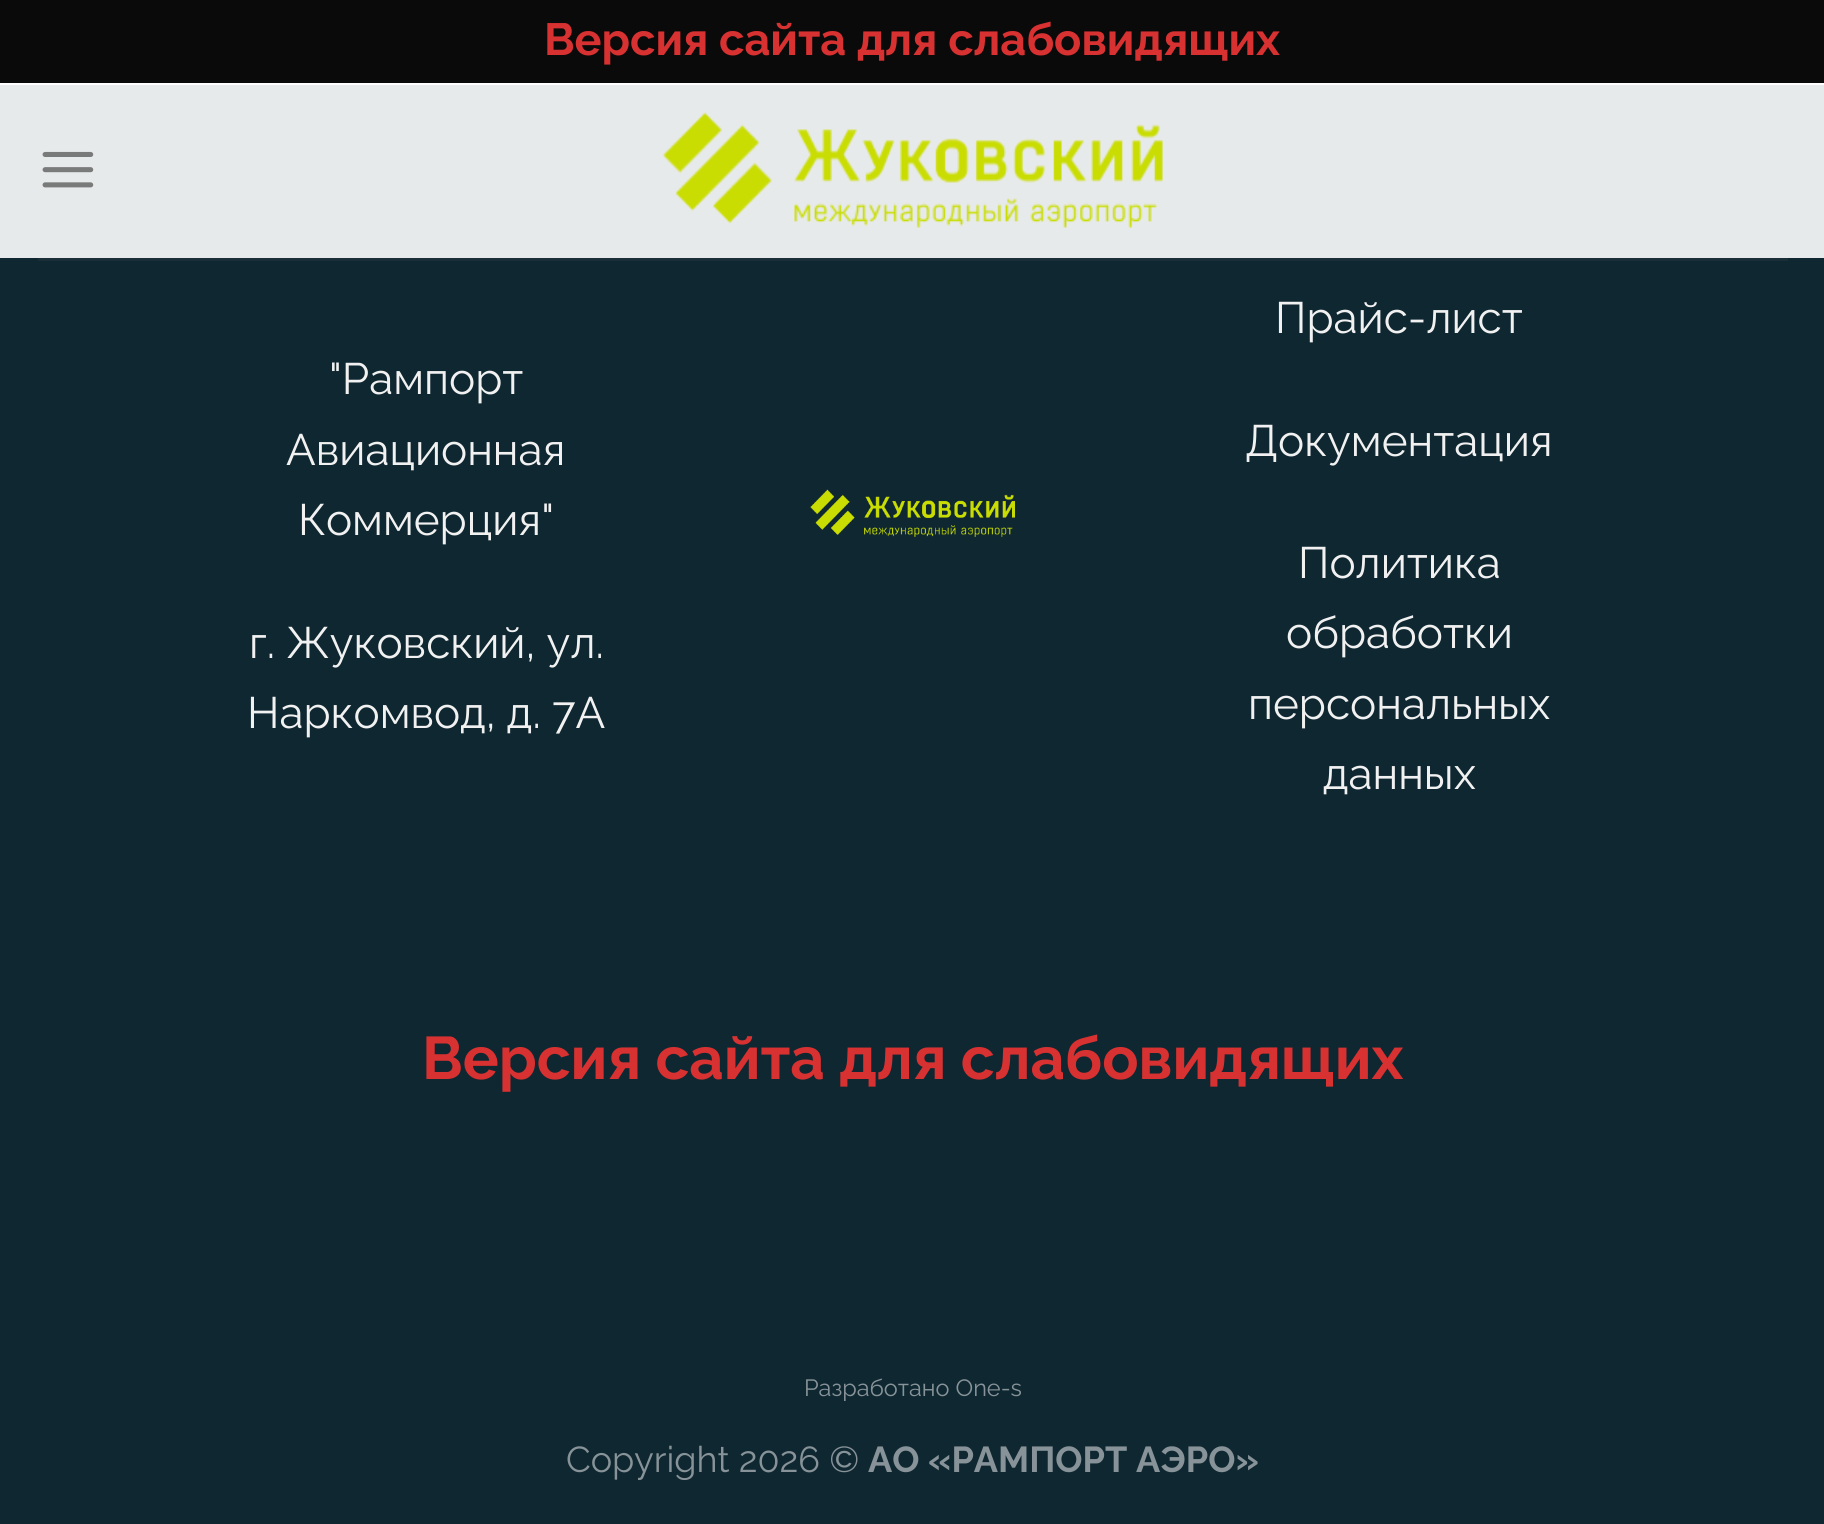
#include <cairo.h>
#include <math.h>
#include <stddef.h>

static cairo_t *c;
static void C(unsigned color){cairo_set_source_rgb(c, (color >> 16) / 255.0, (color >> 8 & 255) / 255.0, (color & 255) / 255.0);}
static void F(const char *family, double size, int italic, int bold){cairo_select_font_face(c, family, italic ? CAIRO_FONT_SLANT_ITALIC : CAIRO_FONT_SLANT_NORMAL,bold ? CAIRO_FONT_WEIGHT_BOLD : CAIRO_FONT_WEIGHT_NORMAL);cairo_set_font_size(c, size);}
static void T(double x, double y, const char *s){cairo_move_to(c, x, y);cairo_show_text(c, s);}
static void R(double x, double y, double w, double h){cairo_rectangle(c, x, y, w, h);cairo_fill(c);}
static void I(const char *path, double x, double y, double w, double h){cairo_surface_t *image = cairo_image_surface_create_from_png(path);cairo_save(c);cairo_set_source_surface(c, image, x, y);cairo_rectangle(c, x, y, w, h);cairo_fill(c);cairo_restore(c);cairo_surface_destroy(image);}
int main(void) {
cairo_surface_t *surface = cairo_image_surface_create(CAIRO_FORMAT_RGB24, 1824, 1524);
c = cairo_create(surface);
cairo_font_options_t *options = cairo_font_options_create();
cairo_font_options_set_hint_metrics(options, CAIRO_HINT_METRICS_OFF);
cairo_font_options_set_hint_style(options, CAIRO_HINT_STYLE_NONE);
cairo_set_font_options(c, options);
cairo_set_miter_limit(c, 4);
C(0xffffff);
cairo_paint(c);
C(0x0a0a0a);
R(0,0,1824,83);
F("Raleway",45,0,1);
C(0xd83131);
T(544,55,"Версия сайта для слабовидящих");
C(0x0f2731);
R(0,85,1824,1439);
cairo_set_source_rgba(c,1,1,1,0.9);
R(0,85,1824,173);
I("1.png",42,151,52,37);
I("2.png",662,112,501,116);
cairo_set_source_rgba(c,0.467,0.467,0.467,0.1);
R(38,258,1750,3);
F("Raleway",44,0,0);
C(0xf1f1f1);
T(329,394,"\"Рампорт");
T(286,465,"Авиационная");
T(298,535,"Коммерция\"");
T(249,658,"г. Жуковский, ул.");
T(247,728,"Наркомвод, д. 7А");
I("3.png",810,489,205,48);
T(1275,333,"Прайс-лист");
T(1245,456,"Документация");
T(1298,578,"Политика");
T(1286,648,"обработки");
T(1248,719,"персональных");
T(1323,789,"данных");
F("Raleway",60,0,1);
C(0xd83131);
T(422,1079,"Версия сайта для слабовидящих");
F("Raleway",23.5,0,0);
C(0x879398);
T(804,1396,"Разработано One-s");
F("Raleway",36,0,0);
T(566,1472,"Copyright 2026 ©");
F("Raleway",36,0,1);
T(868,1472,"АО «РАМПОРТ АЭРО»");
cairo_surface_write_to_png(surface, "o.png");
cairo_font_options_destroy(options);
cairo_destroy(c);
cairo_surface_destroy(surface);
return 0;
}
